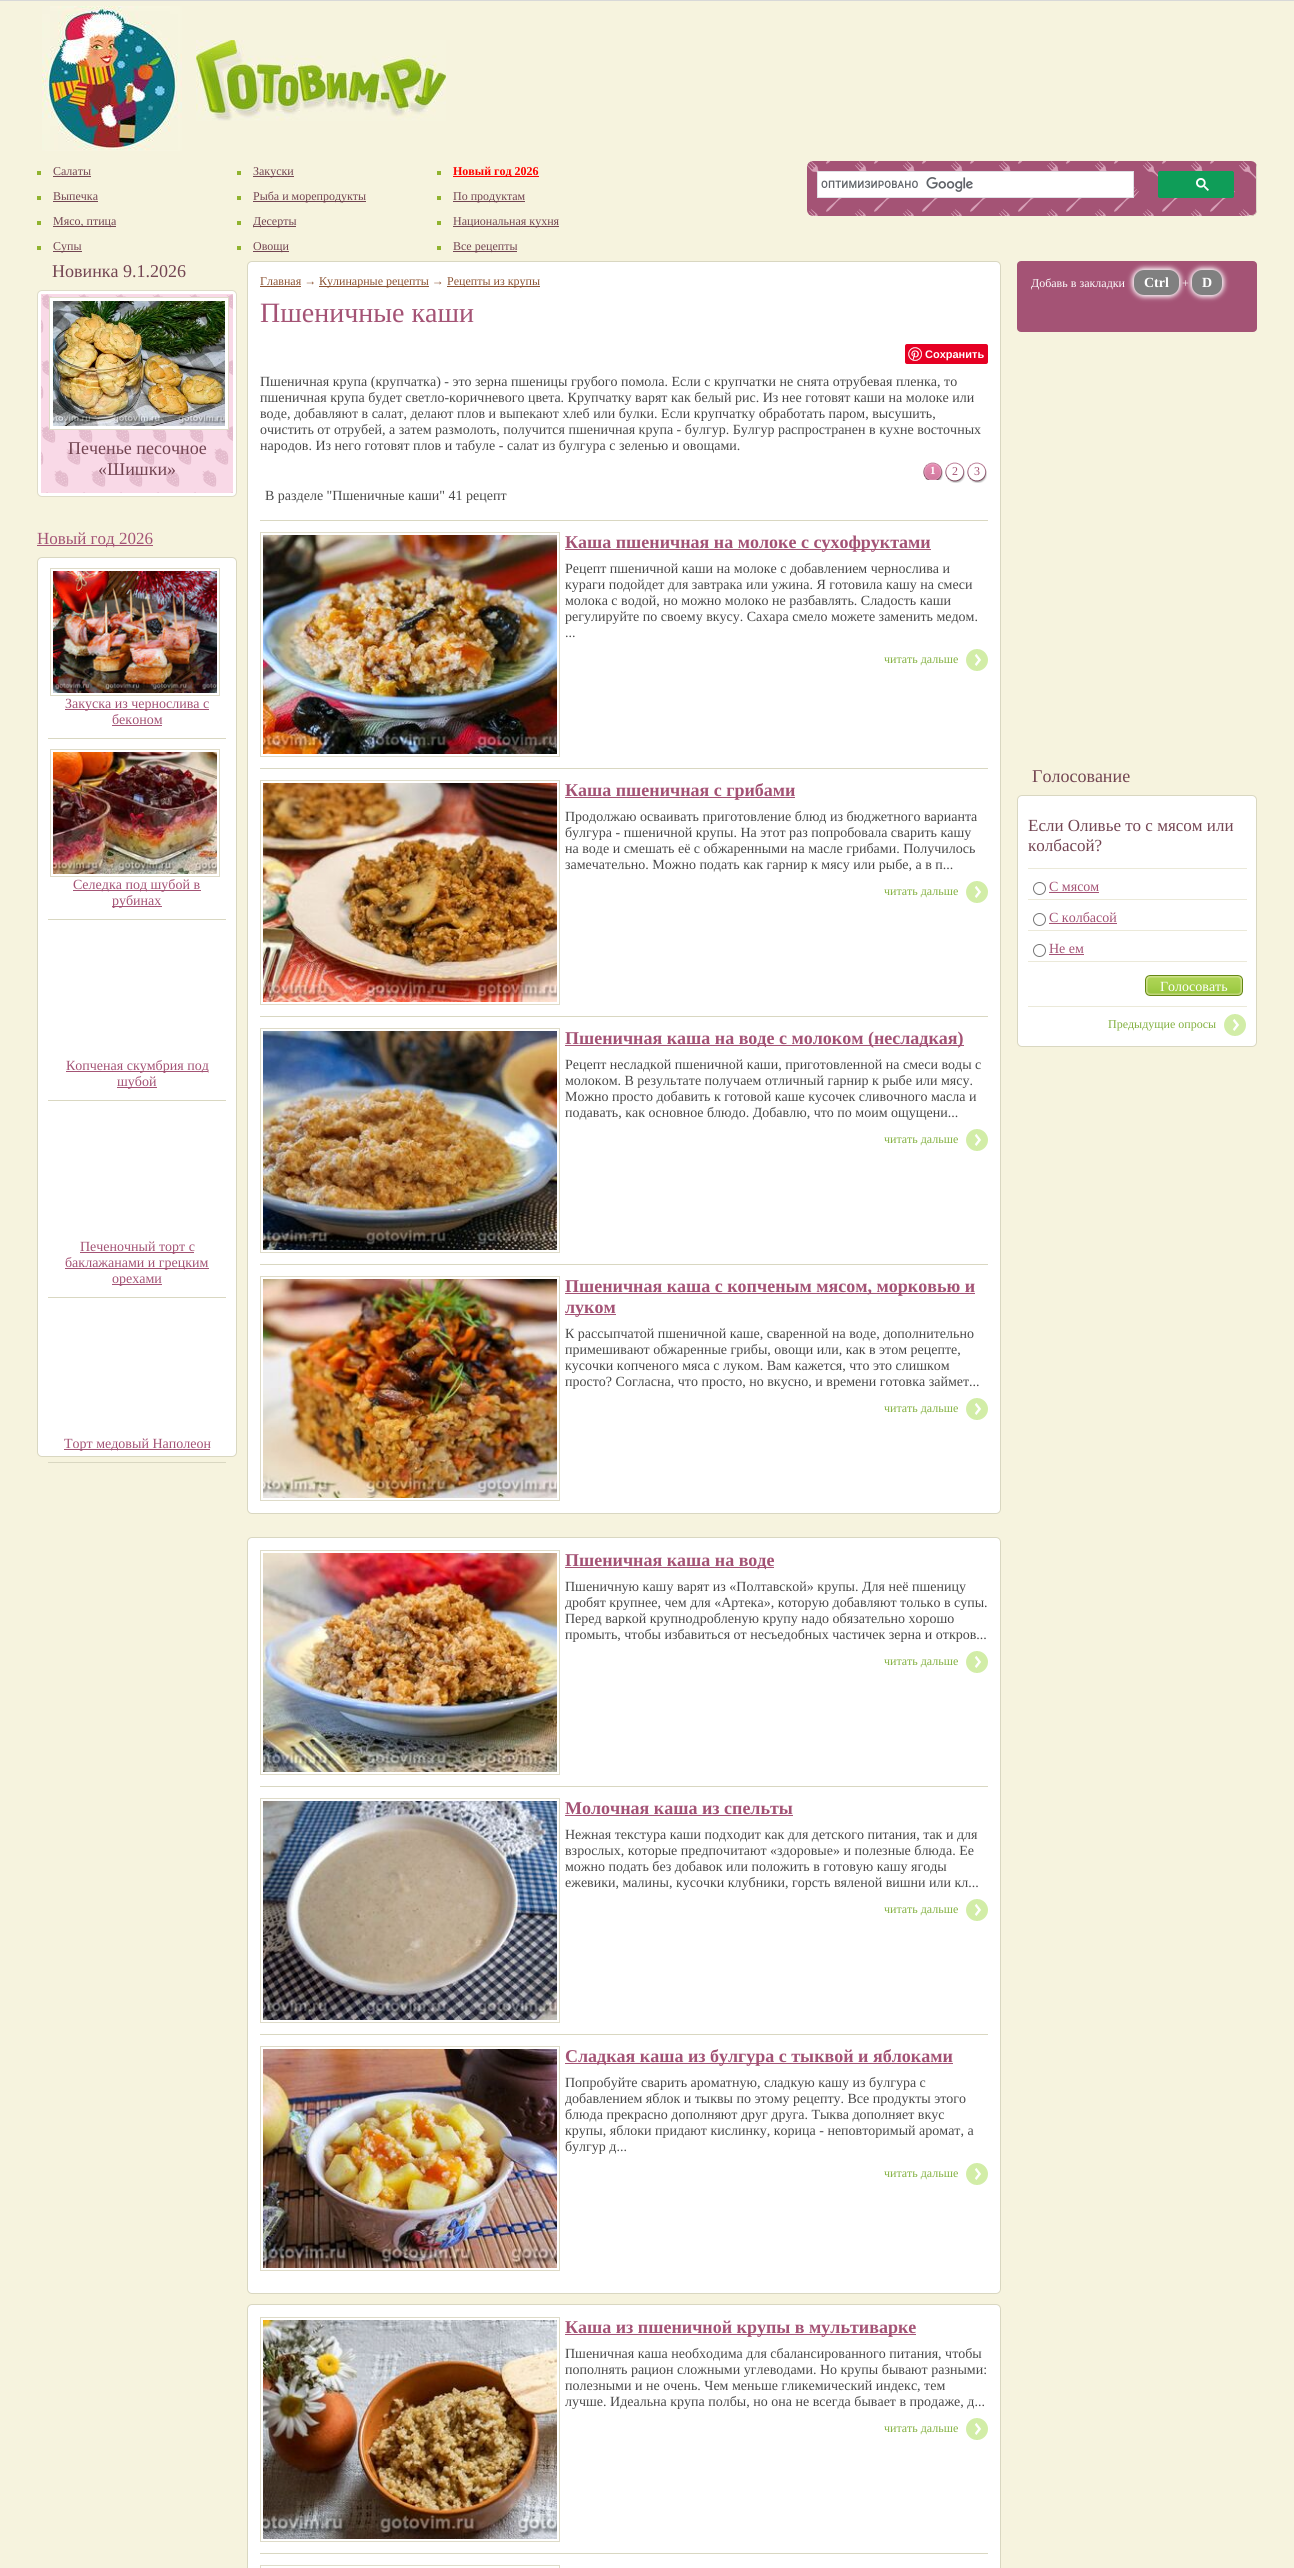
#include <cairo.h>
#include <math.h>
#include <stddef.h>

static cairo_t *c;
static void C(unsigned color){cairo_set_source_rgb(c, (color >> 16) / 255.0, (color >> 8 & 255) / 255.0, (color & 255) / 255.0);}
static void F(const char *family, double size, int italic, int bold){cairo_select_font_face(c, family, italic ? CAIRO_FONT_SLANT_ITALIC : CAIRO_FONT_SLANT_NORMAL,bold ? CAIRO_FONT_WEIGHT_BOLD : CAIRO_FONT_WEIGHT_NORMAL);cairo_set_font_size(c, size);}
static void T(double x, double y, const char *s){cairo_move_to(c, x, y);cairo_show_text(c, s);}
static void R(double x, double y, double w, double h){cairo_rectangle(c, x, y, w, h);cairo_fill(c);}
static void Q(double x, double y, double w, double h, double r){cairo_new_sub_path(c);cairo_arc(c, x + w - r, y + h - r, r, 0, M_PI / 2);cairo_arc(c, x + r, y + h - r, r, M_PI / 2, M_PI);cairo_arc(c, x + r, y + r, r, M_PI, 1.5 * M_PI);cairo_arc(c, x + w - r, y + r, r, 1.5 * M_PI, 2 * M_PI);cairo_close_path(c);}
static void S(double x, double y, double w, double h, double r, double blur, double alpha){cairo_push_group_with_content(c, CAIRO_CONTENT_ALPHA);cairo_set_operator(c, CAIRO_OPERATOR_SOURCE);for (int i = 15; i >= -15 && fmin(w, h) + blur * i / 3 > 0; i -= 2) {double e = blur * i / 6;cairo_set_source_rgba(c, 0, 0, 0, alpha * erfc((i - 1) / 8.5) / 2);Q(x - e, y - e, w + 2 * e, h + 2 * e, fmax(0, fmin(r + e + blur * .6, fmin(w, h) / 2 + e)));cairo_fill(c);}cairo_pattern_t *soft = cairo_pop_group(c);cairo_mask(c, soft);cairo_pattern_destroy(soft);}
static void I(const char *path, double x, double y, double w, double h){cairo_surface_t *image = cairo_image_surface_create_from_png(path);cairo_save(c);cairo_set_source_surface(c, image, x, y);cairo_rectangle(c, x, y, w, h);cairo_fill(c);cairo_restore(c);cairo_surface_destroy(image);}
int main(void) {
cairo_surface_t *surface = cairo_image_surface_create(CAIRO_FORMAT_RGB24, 1294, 2568);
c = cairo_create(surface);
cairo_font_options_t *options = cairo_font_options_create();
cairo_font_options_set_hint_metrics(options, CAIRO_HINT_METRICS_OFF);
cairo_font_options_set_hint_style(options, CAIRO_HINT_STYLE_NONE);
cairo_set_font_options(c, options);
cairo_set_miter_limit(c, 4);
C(0xf6f3de);
cairo_paint(c);
C(0xd8d8d8);
R(0,0,1294,1);
I("1.png",42,6,140,145);
I("2.png",196,40,250,81);
C(0x90b32e);
R(37,171,4,4);
F("Liberation Serif",12,0,0);
C(0x734552);
T(53,175,"Салаты");
R(53,176,38,1);
C(0x90b32e);
R(37,196,4,4);
C(0x734552);
T(53,200,"Выпечка");
R(53,201,45,1);
C(0x90b32e);
R(37,221,4,4);
C(0x734552);
R(53,226,63,1);
T(53,225,"Мясо, птица");
C(0x90b32e);
R(37,246,4,4);
C(0x734552);
R(53,251,29,1);
T(53,250,"Супы");
C(0x90b32e);
R(237,171,4,4);
C(0x734552);
R(253,176,41,1);
T(253,175,"Закуски");
C(0x90b32e);
R(237,196,4,4);
C(0x734552);
R(253,201,113,1);
T(253,200,"Рыба и морепродукты");
C(0x90b32e);
R(237,221,4,4);
C(0x734552);
R(253,226,43,1);
T(253,225,"Десерты");
C(0x90b32e);
R(237,246,4,4);
C(0x734552);
R(253,251,36,1);
T(253,250,"Овощи");
C(0x90b32e);
R(437,171,4,4);
C(0xff0000);
R(453,176,86,1);
F("Liberation Serif",12,0,1);
T(453,175,"Новый год 2026");
C(0x90b32e);
R(437,196,4,4);
C(0x734552);
R(453,201,72,1);
F("Liberation Serif",12,0,0);
T(453,200,"По продуктам");
C(0x90b32e);
R(437,221,4,4);
C(0x734552);
R(453,226,106,1);
T(453,225,"Национальная кухня");
C(0x90b32e);
R(437,246,4,4);
C(0x734552);
R(453,251,64,1);
T(453,250,"Все рецепты");
I("3.png",807,161,450,55);
I("4.png",1249,164,8,52);
C(0xffffff);
cairo_rectangle(c,817.5,171.5,316,26);
cairo_fill_preserve(c);
C(0xdfe1e5);
cairo_set_line_width(c,1);
cairo_stroke(c);
I("5.png",821,177,152,15);
C(0x0f9d58);
Q(1158.5,171.5,75,26,1.5);
cairo_fill_preserve(c);
cairo_stroke(c);
I("6.png",1196,178,13,13);
F("Liberation Serif",18,0,0);
C(0x734552);
T(52,277,"Новинка 9.1.2026");
C(0xffffff);
Q(37.5,290.5,199,206,4.5);
cairo_fill_preserve(c);
C(0xdedbc8);
cairo_stroke(c);
I("7.png",41,294,192,199);
C(0xffffff);
cairo_rectangle(c,49.5,297.5,179,132);
cairo_fill_preserve(c);
C(0xdedbc8);
cairo_stroke(c);
I("8.png",53,301,172,125);
C(0x734552);
T(68,454,"Печенье песочное");
T(98,475,"«Шишки»");
C(0xa45375);
R(37,545,116,1);
F("Liberation Serif",17,0,0);
T(37,544,"Новый год 2026");
C(0xffffff);
Q(37.5,557.5,199,899,4.5);
cairo_fill_preserve(c);
C(0xd9d7c1);
cairo_stroke(c);
R(48,738,178,1);
cairo_rectangle(c,50.5,568.5,169,127);
C(0xdedbc8);
cairo_stroke(c);
I("9.png",53,571,164,122);
C(0xa45375);
R(65,709,144,1);
F("Liberation Serif",14,0,0);
T(65,708,"Закуска из чернослива с");
T(112,724,"беконом");
R(112,725,50,1);
C(0xd9d7c1);
R(48,919,178,1);
cairo_rectangle(c,50.5,749.5,169,127);
C(0xdedbc8);
cairo_stroke(c);
I("10.png",53,752,164,122);
C(0xa45375);
R(73,890,128,1);
T(73,889,"Селедка под шубой в");
R(112,906,50,1);
T(112,905,"рубинах");
C(0xd9d7c1);
R(48,1100,178,1);
C(0xa45375);
R(66,1071,142,1);
T(66,1070,"Копченая скумбрия под");
R(117,1087,40,1);
T(117,1086,"шубой");
C(0xd9d7c1);
R(48,1297,178,1);
C(0xa45375);
R(80,1252,114,1);
T(80,1251,"Печеночный торт с");
R(65,1268,144,1);
T(65,1267,"баклажанами и грецким");
R(112,1284,50,1);
T(112,1283,"орехами");
C(0xd9d7c1);
R(48,1462,178,1);
C(0xa45375);
R(64,1449,146,1);
T(64,1448,"Торт медовый Наполеон");
C(0xffffff);
Q(247.5,261.5,753,1252,4.5);
cairo_fill_preserve(c);
C(0xd9d7c1);
cairo_stroke(c);
F("Liberation Serif",12,0,0);
C(0x8b5232);
T(260,285,"Главная →");
R(260,286,41,1);
R(319,286,110,1);
T(319,285,"Кулинарные рецепты →");
R(447,286,93,1);
T(447,285,"Рецепты из крупы");
F("Liberation Serif",28,0,0);
C(0xa45375);
T(260,322,"Пшеничные каши");
C(0xe60023);
Q(905,344,83,20,2);
cairo_fill(c);
I("11.png",908,347,14,14);
F("Liberation Sans",11,0,1);
C(0xffffff);
T(925,358,"Сохранить");
F("Liberation Serif",14,0,0);
C(0x494949);
T(260,386,"Пшеничная крупа (крупчатка) - это зерна пшеницы грубого помола. Если с крупчатки не снята отрубевая пленка, то");
T(260,402,"пшеничная крупа будет светло-коричневого цвета. Крупчатку варят как белый рис. Из нее готовят каши на молоке или");
T(260,418,"воде, добавляют в салат, делают плов и выпекают хлеб или булки. Если крупчатку обработать паром, высушить,");
T(260,434,"очистить от отрубей, а затем размолоть, получится пшеничная крупа - булгур. Булгур распространен в кухне восточных");
T(260,450,"народов. Из него готовят плов и табуле - салат из булгура с зеленью и овощами.");
I("12.png",923,462,20,18);
F("Liberation Serif",11,0,1);
C(0xffffff);
T(930,474,"1");
I("13.png",945,462,20,21);
F("Liberation Serif",12,0,0);
C(0xa45375);
T(952,475,"2");
I("13.png",967,462,20,21);
T(974,475,"3");
F("Liberation Serif",14,0,0);
C(0x494949);
T(265,500,"В разделе \"Пшеничные каши\" 41 рецепт");
C(0xd9d7c1);
R(260,520,728,1);
cairo_rectangle(c,260.5,532.5,299,224);
C(0xdedbc8);
cairo_stroke(c);
I("14.png",263,535,294,219);
C(0xa45375);
R(565,549,366,1);
F("Liberation Serif",18,0,1);
T(565,548,"Каша пшеничная на молоке с сухофруктами");
F("Liberation Serif",14,0,0);
C(0x494949);
T(565,573,"Рецепт пшеничной каши на молоке с добавлением чернослива и");
T(565,589,"кураги подойдет для завтрака или ужина. Я готовила кашу на смеси");
T(565,605,"молока с водой, но можно молоко не разбавлять. Сладость каши");
T(565,621,"регулируйте по своему вкусу. Сахара смело можете заменить медом.");
T(565,637,"...");
F("Liberation Serif",12,0,0);
C(0x82b03f);
T(884,663,"читать дальше");
I("15.png",966,649,22,22);
C(0xd9d7c1);
R(260,768,728,1);
cairo_rectangle(c,260.5,780.5,299,224);
C(0xdedbc8);
cairo_stroke(c);
I("16.png",263,783,294,219);
C(0xa45375);
R(565,797,230,1);
F("Liberation Serif",18,0,1);
T(565,796,"Каша пшеничная с грибами");
F("Liberation Serif",14,0,0);
C(0x494949);
T(565,821,"Продолжаю осваивать приготовление блюд из бюджетного варианта");
T(565,837,"булгура - пшеничной крупы. На этот раз попробовала сварить кашу");
T(565,853,"на воде и смешать её с обжаренными на масле грибами. Получилось");
T(565,869,"замечательно. Можно подать как гарнир к мясу или рыбе, а в п...");
F("Liberation Serif",12,0,0);
C(0x82b03f);
T(884,895,"читать дальше");
I("15.png",966,881,22,22);
C(0xd9d7c1);
R(260,1016,728,1);
cairo_rectangle(c,260.5,1028.5,299,224);
C(0xdedbc8);
cairo_stroke(c);
I("17.png",263,1031,294,219);
C(0xa45375);
R(565,1045,399,1);
F("Liberation Serif",18,0,1);
T(565,1044,"Пшеничная каша на воде с молоком (несладкая)");
F("Liberation Serif",14,0,0);
C(0x494949);
T(565,1069,"Рецепт несладкой пшеничной каши, приготовленной на смеси воды с");
T(565,1085,"молоком. В результате получаем отличный гарнир к рыбе или мясу.");
T(565,1101,"Можно просто добавить к готовой каше кусочек сливочного масла и");
T(565,1117,"подавать, как основное блюдо. Добавлю, что по моим ощущени...");
F("Liberation Serif",12,0,0);
C(0x82b03f);
T(884,1143,"читать дальше");
I("15.png",966,1129,22,22);
C(0xd9d7c1);
R(260,1264,728,1);
cairo_rectangle(c,260.5,1276.5,299,224);
C(0xdedbc8);
cairo_stroke(c);
I("18.png",263,1279,294,219);
C(0xa45375);
R(565,1293,410,1);
F("Liberation Serif",18,0,1);
T(565,1292,"Пшеничная каша с копченым мясом, морковью и");
R(565,1314,51,1);
T(565,1313,"луком");
F("Liberation Serif",14,0,0);
C(0x494949);
T(565,1338,"К рассыпчатой пшеничной каше, сваренной на воде, дополнительно");
T(565,1354,"примешивают обжаренные грибы, овощи или, как в этом рецепте,");
T(565,1370,"кусочки копченого мяса с луком. Вам кажется, что это слишком");
T(565,1386,"просто? Согласна, что просто, но вкусно, и времени готовка займет...");
F("Liberation Serif",12,0,0);
C(0x82b03f);
T(884,1412,"читать дальше");
I("15.png",966,1398,22,22);
C(0xffffff);
Q(247.5,1537.5,753,756,4.5);
cairo_fill_preserve(c);
C(0xd9d7c1);
cairo_stroke(c);
cairo_rectangle(c,260.5,1550.5,299,224);
C(0xdedbc8);
cairo_stroke(c);
I("19.png",263,1553,294,219);
C(0xa45375);
R(565,1567,209,1);
F("Liberation Serif",18,0,1);
T(565,1566,"Пшеничная каша на воде");
F("Liberation Serif",14,0,0);
C(0x494949);
T(565,1591,"Пшеничную кашу варят из «Полтавской» крупы. Для неё пшеницу");
T(565,1607,"дробят крупнее, чем для «Артека», которую добавляют только в супы.");
T(565,1623,"Перед варкой крупнодробленую крупу надо обязательно хорошо");
T(565,1639,"промыть, чтобы избавиться от несъедобных частичек зерна и откров...");
F("Liberation Serif",12,0,0);
C(0x82b03f);
T(884,1665,"читать дальше");
I("15.png",966,1651,22,22);
C(0xd9d7c1);
R(260,1786,728,1);
cairo_rectangle(c,260.5,1798.5,299,224);
C(0xdedbc8);
cairo_stroke(c);
I("20.png",263,1801,294,219);
F("Liberation Serif",18,0,1);
C(0xa45375);
T(565,1814,"Молочная каша из спельты");
R(565,1815,228,1);
F("Liberation Serif",14,0,0);
C(0x494949);
T(565,1839,"Нежная текстура каши подходит как для детского питания, так и для");
T(565,1855,"взрослых, которые предпочитают «здоровые» и полезные блюда. Ее");
T(565,1871,"можно подать без добавок или положить в готовую кашу ягоды");
T(565,1887,"ежевики, малины, кусочки клубники, горсть вяленой вишни или кл...");
F("Liberation Serif",12,0,0);
C(0x82b03f);
T(884,1913,"читать дальше");
I("15.png",966,1899,22,22);
C(0xd9d7c1);
R(260,2034,728,1);
cairo_rectangle(c,260.5,2046.5,299,224);
C(0xdedbc8);
cairo_stroke(c);
I("21.png",263,2049,294,219);
C(0xa45375);
R(565,2063,388,1);
F("Liberation Serif",18,0,1);
T(565,2062,"Сладкая каша из булгура с тыквой и яблоками");
F("Liberation Serif",14,0,0);
C(0x494949);
T(565,2087,"Попробуйте сварить ароматную, сладкую кашу из булгура с");
T(565,2103,"добавлением яблок и тыквы по этому рецепту. Все продукты этого");
T(565,2119,"блюда прекрасно дополняют друг друга. Тыква дополняет вкус");
T(565,2135,"крупы, яблоки придают кислинку, корица - неповторимый аромат, а");
T(565,2151,"булгур д...");
F("Liberation Serif",12,0,0);
C(0x82b03f);
T(884,2177,"читать дальше");
I("15.png",966,2163,22,22);
C(0xffffff);
Q(247.5,2304.5,753,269,4.5);
cairo_fill_preserve(c);
C(0xd9d7c1);
cairo_stroke(c);
cairo_rectangle(c,260.5,2317.5,299,224);
C(0xdedbc8);
cairo_stroke(c);
I("22.png",263,2320,294,219);
C(0xa45375);
R(565,2334,351,1);
F("Liberation Serif",18,0,1);
T(565,2333,"Каша из пшеничной крупы в мультиварке");
F("Liberation Serif",14,0,0);
C(0x494949);
T(565,2358,"Пшеничная каша необходима для сбалансированного питания, чтобы");
T(565,2374,"пополнять рацион сложными углеводами. Но крупы бывают разными:");
T(565,2390,"полезными и не очень. Чем меньше гликемический индекс, тем");
T(565,2406,"лучше. Идеальна крупа полбы, но она не всегда бывает в продаже, д...");
F("Liberation Serif",12,0,0);
C(0x82b03f);
T(884,2432,"читать дальше");
I("15.png",966,2418,22,22);
C(0xd9d7c1);
R(260,2553,728,1);
cairo_rectangle(c,260.5,2565.5,299,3);
C(0xdedbc8);
cairo_stroke(c);
I("23.png",1017,261,240,71);
C(0xffffff);
T(1031,287,"Добавь в закладки");
C(0xffffff);
S(1132,268,49,29,12,2.5,1);
C(0x808080);
Q(1134,270,45,25,10);
cairo_fill(c);
F("Liberation Serif",14,0,1);
C(0xffffff);
T(1144,287,"Ctrl");
F("Liberation Serif",12,0,0);
T(1182,287,"+");
C(0xffffff);
S(1190,268,34,29,12,2.5,1);
C(0x808080);
Q(1192,270,30,25,10);
cairo_fill(c);
F("Liberation Serif",14,0,1);
C(0xffffff);
T(1202,287,"D");
F("Liberation Serif",18,0,0);
C(0x734552);
T(1032,782,"Голосование");
C(0xffffff);
Q(1017.5,795.5,239,251,4.5);
cairo_fill_preserve(c);
C(0xd9d7c1);
cairo_stroke(c);
C(0xebe9d9);
R(1028,868,219,1);
F("Liberation Serif",17,0,0);
C(0x734552);
T(1028,831,"Если Оливье то с мясом или");
T(1028,851,"колбасой?");
cairo_new_path(c);
cairo_arc(c,1039.5,888.5,6,0,2 * M_PI);
C(0x767676);
cairo_stroke(c);
C(0xebe9d9);
R(1028,899,219,1);
F("Liberation Serif",14,0,0);
C(0xa45375);
T(1049,891,"С мясом");
R(1049,892,50,1);
cairo_new_path(c);
cairo_arc(c,1039.5,919.5,6,0,2 * M_PI);
C(0x767676);
cairo_stroke(c);
C(0xebe9d9);
R(1028,930,219,1);
C(0xa45375);
T(1049,922,"С колбасой");
R(1049,923,68,1);
cairo_new_path(c);
cairo_arc(c,1039.5,950.5,6,0,2 * M_PI);
C(0x767676);
cairo_stroke(c);
C(0xebe9d9);
R(1028,961,219,1);
C(0xa45375);
T(1049,953,"Не ем");
R(1049,954,35,1);
C(0xebe9d9);
R(1028,1006,219,1);
I("24.png",1145,975,15,21);
I("25.png",1160,975,68,21);
C(0xffffff);
T(1160,991,"Голосовать");
I("26.png",1228,975,15,21);
F("Liberation Serif",12,0,0);
C(0x82b03f);
T(1108,1028,"Предыдущие опросы");
I("15.png",1224,1014,22,22);
cairo_surface_write_to_png(surface, "o.png");
cairo_font_options_destroy(options);
cairo_destroy(c);
cairo_surface_destroy(surface);
return 0;
}
